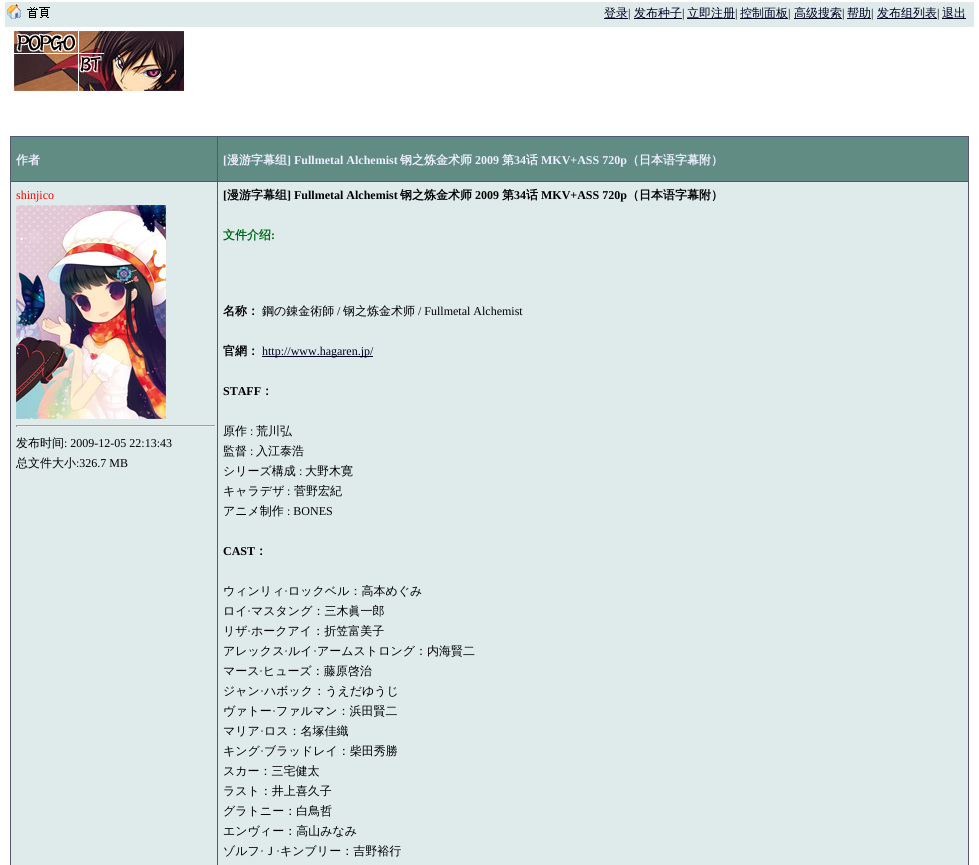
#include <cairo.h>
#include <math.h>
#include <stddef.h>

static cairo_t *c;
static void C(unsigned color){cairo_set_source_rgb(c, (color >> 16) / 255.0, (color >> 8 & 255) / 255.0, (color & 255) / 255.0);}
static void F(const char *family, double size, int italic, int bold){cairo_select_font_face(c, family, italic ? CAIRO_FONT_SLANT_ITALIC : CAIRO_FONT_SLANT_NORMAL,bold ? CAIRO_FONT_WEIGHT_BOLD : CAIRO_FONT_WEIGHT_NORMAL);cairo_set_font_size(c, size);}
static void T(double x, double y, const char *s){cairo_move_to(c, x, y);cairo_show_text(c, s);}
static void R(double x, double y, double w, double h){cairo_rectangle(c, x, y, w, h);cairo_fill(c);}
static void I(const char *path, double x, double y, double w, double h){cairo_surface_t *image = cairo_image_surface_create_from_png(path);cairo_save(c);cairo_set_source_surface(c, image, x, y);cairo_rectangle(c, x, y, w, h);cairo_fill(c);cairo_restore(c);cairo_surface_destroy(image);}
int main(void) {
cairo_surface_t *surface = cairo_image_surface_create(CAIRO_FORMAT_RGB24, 979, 865);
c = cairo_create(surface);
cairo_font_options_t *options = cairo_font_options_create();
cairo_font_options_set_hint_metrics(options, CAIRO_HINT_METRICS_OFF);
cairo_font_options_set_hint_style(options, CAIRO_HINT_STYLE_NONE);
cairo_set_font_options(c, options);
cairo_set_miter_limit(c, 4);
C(0xffffff);
cairo_paint(c);
C(0xdeebea);
R(5,2,969,25);
I("1.png",7,4,43,15);
C(0x000020);
R(604,18,24,1);
F("WenQuanYi Zen Hei Medium",12,0,0);
T(604,17,"登录");
F("Liberation Serif",12,0,0);
C(0x000000);
T(628,17,"|");
C(0x000020);
R(634,18,48,1);
F("WenQuanYi Zen Hei Medium",12,0,0);
T(634,17,"发布种子");
F("Liberation Serif",12,0,0);
C(0x000000);
T(682,17,"|");
C(0x000020);
R(687,18,48,1);
F("WenQuanYi Zen Hei Medium",12,0,0);
T(687,17,"立即注册");
F("Liberation Serif",12,0,0);
C(0x000000);
T(735,17,"|");
C(0x000020);
R(740,18,48,1);
F("WenQuanYi Zen Hei Medium",12,0,0);
T(740,17,"控制面板");
F("Liberation Serif",12,0,0);
C(0x000000);
T(788,17,"|");
C(0x000020);
R(794,18,48,1);
F("WenQuanYi Zen Hei Medium",12,0,0);
T(794,17,"高级搜索");
F("Liberation Serif",12,0,0);
C(0x000000);
T(842,17,"|");
C(0x000020);
R(847,18,24,1);
F("WenQuanYi Zen Hei Medium",12,0,0);
T(847,17,"帮助");
F("Liberation Serif",12,0,0);
C(0x000000);
T(871,17,"|");
C(0x000020);
R(877,18,60,1);
F("WenQuanYi Zen Hei Medium",12,0,0);
T(877,17,"发布组列表");
F("Liberation Serif",12,0,0);
C(0x000000);
T(937,17,"|");
C(0x000020);
R(942,18,24,1);
F("WenQuanYi Zen Hei Medium",12,0,0);
T(942,17,"退出");
I("2.png",14,31,170,60);
C(0xdeebea);
R(11,182,957,683);
C(0x608c84);
R(11,137,957,44);
C(0x555576);
R(217,136,752,1);
R(217,181,752,1);
R(217,181,1,684);
R(10,181,208,1);
R(217,136,1,46);
R(10,136,208,1);
R(10,181,1,684);
R(10,136,1,46);
F("WenQuanYi Zen Hei",12,0,1);
C(0xeeeeff);
T(16,164,"作者");
C(0x555576);
R(968,181,1,684);
R(968,136,1,46);
F("Liberation Serif",12,0,1);
C(0xeeeeff);
T(223,164,"[");
F("WenQuanYi Zen Hei",12,0,1);
T(227,164,"漫游字幕组");
F("Liberation Serif",12,0,1);
T(287,164,"] Fullmetal Alchemist");
F("WenQuanYi Zen Hei",12,0,1);
T(400,164,"钢之炼金术师");
F("Liberation Serif",12,0,1);
T(475,164,"2009");
F("WenQuanYi Zen Hei",12,0,1);
T(502,164,"第");
F("Liberation Serif",12,0,1);
T(514,164,"34");
F("WenQuanYi Zen Hei",12,0,1);
T(526,164,"话");
F("Liberation Serif",12,0,1);
T(541,164,"MKV+ASS 720p");
F("WenQuanYi Zen Hei",12,0,1);
T(627,164,"（日本语字幕附）");
F("Liberation Serif",12,0,0);
C(0xff0000);
T(16,199,"shinjico");
I("3.png",16,205,150,214);
C(0x9f9f9f);
R(16,425,200,1);
C(0xeeeeee);
R(215,425,1,2);
R(16,426,200,1);
C(0x9f9f9f);
R(16,425,1,2);
F("WenQuanYi Zen Hei Medium",12,0,0);
C(0x000000);
T(16,447,"发布时间");
F("Liberation Serif",12,0,0);
T(64,447,": 2009-12-05 22:13:43");
F("WenQuanYi Zen Hei Medium",12,0,0);
T(16,467,"总文件大小");
F("Liberation Serif",12,0,0);
T(76,467,":326.7 MB");
F("Liberation Serif",12,0,1);
T(223,199,"[");
F("WenQuanYi Zen Hei",12,0,1);
T(227,199,"漫游字幕组");
F("Liberation Serif",12,0,1);
T(287,199,"] Fullmetal Alchemist");
F("WenQuanYi Zen Hei",12,0,1);
T(400,199,"钢之炼金术师");
F("Liberation Serif",12,0,1);
T(475,199,"2009");
F("WenQuanYi Zen Hei",12,0,1);
T(502,199,"第");
F("Liberation Serif",12,0,1);
T(514,199,"34");
F("WenQuanYi Zen Hei",12,0,1);
T(526,199,"话");
F("Liberation Serif",12,0,1);
T(541,199,"MKV+ASS 720p");
F("WenQuanYi Zen Hei",12,0,1);
T(627,199,"（日本语字幕附）");
C(0x00681c);
T(223,239,"文件介绍");
F("Liberation Serif",12,0,1);
T(271,239,":");
F("WenQuanYi Zen Hei",12,0,1);
C(0x000000);
T(223,315,"名称：");
F("WenQuanYi Zen Hei Medium",12,0,0);
T(262,315,"鋼の錬金術師");
F("Liberation Serif",12,0,0);
T(337,315,"/");
F("WenQuanYi Zen Hei Medium",12,0,0);
T(343,315,"钢之炼金术师");
F("Liberation Serif",12,0,0);
T(418,315,"/ Fullmetal Alchemist");
F("WenQuanYi Zen Hei",12,0,1);
T(223,355,"官網：");
C(0x000020);
R(262,356,111,1);
F("Liberation Serif",12,0,0);
T(262,355,"http://www.hagaren.jp/");
F("Liberation Serif",12,0,1);
C(0x000000);
T(223,395,"STAFF");
F("WenQuanYi Zen Hei",12,0,1);
T(261,395,"：");
F("WenQuanYi Zen Hei Medium",12,0,0);
T(223,435,"原作");
F("Liberation Serif",12,0,0);
T(250,435,":");
F("WenQuanYi Zen Hei Medium",12,0,0);
T(256,435,"荒川弘");
T(223,455,"監督");
F("Liberation Serif",12,0,0);
T(250,455,":");
F("WenQuanYi Zen Hei Medium",12,0,0);
T(256,455,"入江泰浩");
T(223,475,"シリーズ構成");
F("Liberation Serif",12,0,0);
T(299,475,":");
F("WenQuanYi Zen Hei Medium",12,0,0);
T(305,475,"大野木寛");
T(223,495,"キャラデザ");
F("Liberation Serif",12,0,0);
T(287,495,":");
F("WenQuanYi Zen Hei Medium",12,0,0);
T(294,495,"菅野宏紀");
T(223,515,"アニメ制作");
F("Liberation Serif",12,0,0);
T(287,515,": BONES");
F("Liberation Serif",12,0,1);
T(223,555,"CAST");
F("WenQuanYi Zen Hei",12,0,1);
T(255,555,"：");
F("WenQuanYi Zen Hei Medium",12,0,0);
T(223,595,"ウィンリィ");
F("Liberation Serif",12,0,0);
T(284,595,"·");
F("WenQuanYi Zen Hei Medium",12,0,0);
T(288,595,"ロックベル：高本めぐみ");
T(223,615,"ロイ");
F("Liberation Serif",12,0,0);
T(247,615,"·");
F("WenQuanYi Zen Hei Medium",12,0,0);
T(251,615,"マスタング：三木眞一郎");
T(223,635,"リザ");
F("Liberation Serif",12,0,0);
T(247,635,"·");
F("WenQuanYi Zen Hei Medium",12,0,0);
T(251,635,"ホークアイ：折笠富美子");
T(223,655,"アレックス");
F("Liberation Serif",12,0,0);
T(284,655,"·");
F("WenQuanYi Zen Hei Medium",12,0,0);
T(288,655,"ルイ");
F("Liberation Serif",12,0,0);
T(313,655,"·");
F("WenQuanYi Zen Hei Medium",12,0,0);
T(317,655,"アームストロング：内海賢二");
T(223,675,"マース");
F("Liberation Serif",12,0,0);
T(259,675,"·");
F("WenQuanYi Zen Hei Medium",12,0,0);
T(263,675,"ヒューズ：藤原啓治");
T(223,695,"ジャン");
F("Liberation Serif",12,0,0);
T(260,695,"·");
F("WenQuanYi Zen Hei Medium",12,0,0);
T(264,695,"ハボック：うえだゆうじ");
T(223,715,"ヴァトー");
F("Liberation Serif",12,0,0);
T(272,715,"·");
F("WenQuanYi Zen Hei Medium",12,0,0);
T(276,715,"ファルマン：浜田賢二");
T(223,735,"マリア");
F("Liberation Serif",12,0,0);
T(260,735,"·");
F("WenQuanYi Zen Hei Medium",12,0,0);
T(264,735,"ロス：名塚佳織");
T(223,755,"キング");
F("Liberation Serif",12,0,0);
T(260,755,"·");
F("WenQuanYi Zen Hei Medium",12,0,0);
T(264,755,"ブラッドレイ：柴田秀勝");
T(223,775,"スカー：三宅健太");
T(223,795,"ラスト：井上喜久子");
T(223,815,"グラトニー：白鳥哲");
T(223,835,"エンヴィー：高山みなみ");
T(223,855,"ゾルフ");
F("Liberation Serif",12,0,0);
T(260,855,"·");
F("WenQuanYi Zen Hei Medium",12,0,0);
T(264,855,"Ｊ");
F("Liberation Serif",12,0,0);
T(276,855,"·");
F("WenQuanYi Zen Hei Medium",12,0,0);
T(280,855,"キンブリー：吉野裕行");
cairo_surface_write_to_png(surface, "o.png");
cairo_font_options_destroy(options);
cairo_destroy(c);
cairo_surface_destroy(surface);
return 0;
}
